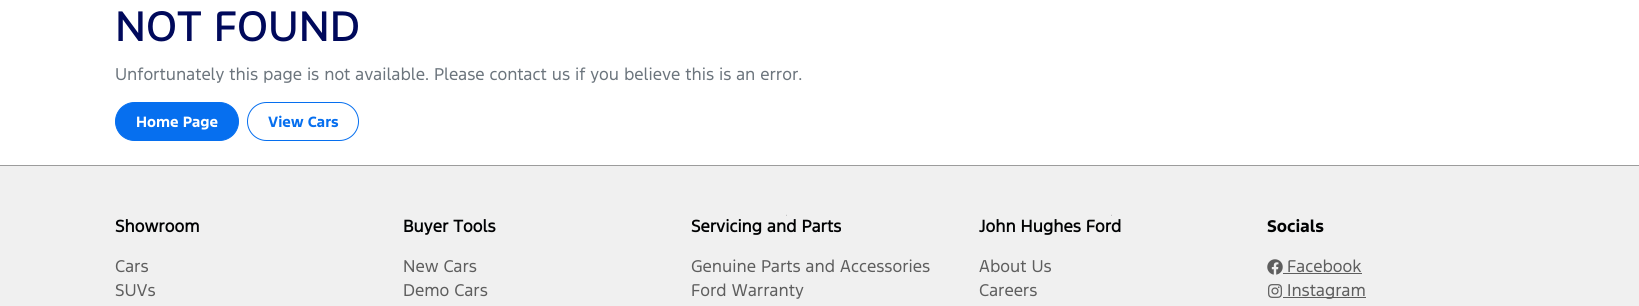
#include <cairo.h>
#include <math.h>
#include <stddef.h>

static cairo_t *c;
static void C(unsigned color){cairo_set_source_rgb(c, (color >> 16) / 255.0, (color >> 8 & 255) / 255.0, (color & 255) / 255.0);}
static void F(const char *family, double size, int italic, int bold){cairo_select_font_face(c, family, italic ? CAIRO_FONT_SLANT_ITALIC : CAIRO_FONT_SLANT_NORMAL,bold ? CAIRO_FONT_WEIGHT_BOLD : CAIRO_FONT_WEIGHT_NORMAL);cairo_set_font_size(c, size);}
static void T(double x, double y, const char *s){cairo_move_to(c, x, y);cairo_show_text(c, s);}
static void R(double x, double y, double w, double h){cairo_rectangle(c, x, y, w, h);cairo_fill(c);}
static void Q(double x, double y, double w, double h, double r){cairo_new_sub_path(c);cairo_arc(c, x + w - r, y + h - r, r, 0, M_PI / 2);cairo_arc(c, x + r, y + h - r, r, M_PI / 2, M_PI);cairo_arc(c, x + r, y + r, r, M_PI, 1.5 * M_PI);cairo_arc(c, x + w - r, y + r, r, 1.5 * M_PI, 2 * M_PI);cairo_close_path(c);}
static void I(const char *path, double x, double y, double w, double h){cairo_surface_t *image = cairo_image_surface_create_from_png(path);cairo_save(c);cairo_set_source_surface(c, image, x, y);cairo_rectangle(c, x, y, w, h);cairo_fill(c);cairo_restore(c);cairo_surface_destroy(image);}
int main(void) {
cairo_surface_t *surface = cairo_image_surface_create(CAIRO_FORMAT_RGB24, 1639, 306);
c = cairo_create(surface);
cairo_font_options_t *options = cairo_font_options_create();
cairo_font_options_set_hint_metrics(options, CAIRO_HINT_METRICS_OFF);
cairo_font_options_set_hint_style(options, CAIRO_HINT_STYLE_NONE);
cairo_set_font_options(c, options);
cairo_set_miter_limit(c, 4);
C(0xffffff);
cairo_paint(c);
F("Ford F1 Medium",40,0,0);
C(0x00095b);
T(115,41,"NOT FOUND");
F("Ford F1",16,0,0);
C(0x6c757d);
T(115,80,"Unfortunately this page is not available. Please contact us if you believe this is an error.");
C(0x066fef);
Q(115.5,102.5,123,38,19);
cairo_fill_preserve(c);
cairo_set_line_width(c,1);
cairo_stroke(c);
F("Ford F1",14,0,1);
C(0xffffff);
T(136,127,"Home Page");
Q(247.5,102.5,111,38,19);
C(0x066fef);
cairo_stroke(c);
T(268,127,"View Cars");
C(0xf0f0f0);
R(0,166,1639,140);
C(0x9c9c9c);
R(0,165,1639,1);
F("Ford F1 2",16,0,1);
C(0x010203);
T(115,232,"Showroom");
F("Ford F1",16,0,0);
C(0x5e5e5e);
T(115,272,"Cars");
T(115,296,"SUVs");
F("Ford F1 2",16,0,1);
C(0x010203);
T(403,232,"Buyer Tools");
F("Ford F1",16,0,0);
C(0x5e5e5e);
T(403,272,"New Cars");
T(403,296,"Demo Cars");
F("Ford F1 2",16,0,1);
C(0x010203);
T(691,232,"Servicing and Parts");
F("Ford F1",16,0,0);
C(0x5e5e5e);
T(691,272,"Genuine Parts and Accessories");
T(691,296,"Ford Warranty");
F("Ford F1 2",16,0,1);
C(0x010203);
T(979,232,"John Hughes Ford");
F("Ford F1",16,0,0);
C(0x5e5e5e);
T(979,272,"About Us");
T(979,296,"Careers");
F("Ford F1",16,0,1);
C(0x010203);
T(1267,232,"Socials");
I("1.png",1267,259,16,16);
F("Ford F1",16,0,0);
C(0x5e5e5e);
T(1287,272,"Facebook");
R(1283,273,79,1);
I("2.png",1268,284,14,14);
R(1283,297,83,1);
T(1287,296,"Instagram");
cairo_surface_write_to_png(surface, "o.png");
cairo_font_options_destroy(options);
cairo_destroy(c);
cairo_surface_destroy(surface);
return 0;
}
